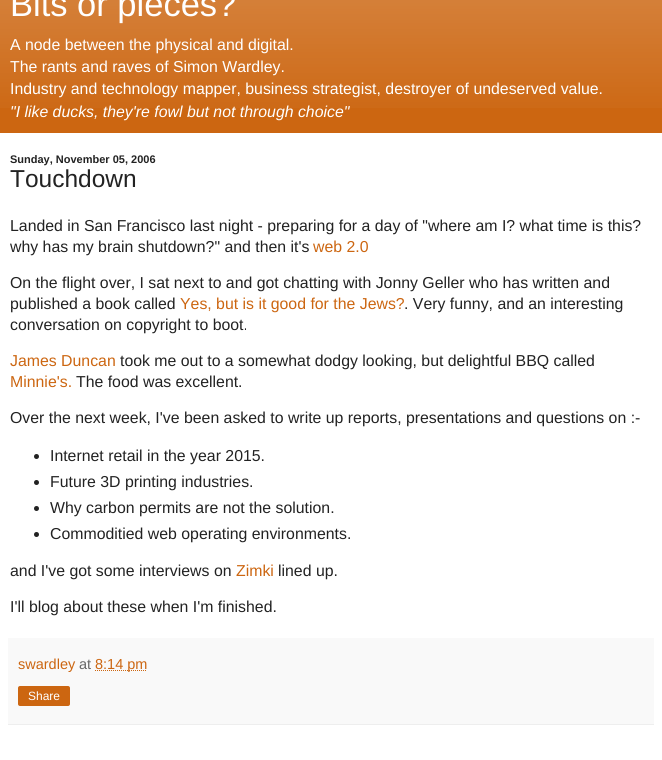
#include <cairo.h>
#include <math.h>
#include <stddef.h>

static cairo_t *c;
static void C(unsigned color){cairo_set_source_rgb(c, (color >> 16) / 255.0, (color >> 8 & 255) / 255.0, (color & 255) / 255.0);}
static void F(const char *family, double size, int italic, int bold){cairo_select_font_face(c, family, italic ? CAIRO_FONT_SLANT_ITALIC : CAIRO_FONT_SLANT_NORMAL,bold ? CAIRO_FONT_WEIGHT_BOLD : CAIRO_FONT_WEIGHT_NORMAL);cairo_set_font_size(c, size);}
static void T(double x, double y, const char *s){cairo_move_to(c, x, y);cairo_show_text(c, s);}
static void R(double x, double y, double w, double h){cairo_rectangle(c, x, y, w, h);cairo_fill(c);}
static void Q(double x, double y, double w, double h, double r){cairo_new_sub_path(c);cairo_arc(c, x + w - r, y + h - r, r, 0, M_PI / 2);cairo_arc(c, x + r, y + h - r, r, M_PI / 2, M_PI);cairo_arc(c, x + r, y + r, r, M_PI, 1.5 * M_PI);cairo_arc(c, x + w - r, y + r, r, 1.5 * M_PI, 2 * M_PI);cairo_close_path(c);}
static void I(const char *path, double x, double y, double w, double h){cairo_surface_t *image = cairo_image_surface_create_from_png(path);cairo_save(c);cairo_set_source_surface(c, image, x, y);cairo_rectangle(c, x, y, w, h);cairo_fill(c);cairo_restore(c);cairo_surface_destroy(image);}
int main(void) {
cairo_surface_t *surface = cairo_image_surface_create(CAIRO_FORMAT_RGB24, 662, 760);
c = cairo_create(surface);
cairo_font_options_t *options = cairo_font_options_create();
cairo_font_options_set_hint_metrics(options, CAIRO_HINT_METRICS_OFF);
cairo_font_options_set_hint_style(options, CAIRO_HINT_STYLE_NONE);
cairo_set_font_options(c, options);
cairo_set_miter_limit(c, 4);
C(0xffffff);
cairo_paint(c);
C(0xcc6611);
R(0,0,662,133);
I("1.png",0,0,662,108);
F("Liberation Sans",34.5,0,0);
C(0xffffff);
T(10,16,"Bits or pieces?");
F("Liberation Sans",15.85,0,0);
T(10,50,"A node between the physical and digital.");
T(10,72,"The rants and raves of Simon Wardley.");
T(10,94,"Industry and technology mapper, business strategist, destroyer of undeserved value.");
F("Liberation Sans",15.85,1,0);
T(10,117,"\"I like ducks, they're fowl but not through choice\"");
F("Liberation Sans",11,0,1);
C(0x222222);
T(10,163,"Sunday, November 05, 2006");
F("Liberation Sans",24.5,0,0);
T(10,187,"Touchdown");
F("Liberation Sans",15.85,0,0);
T(10,231,"Landed in San Francisco last night - preparing for a day of \"where am I? what time is this?");
T(10,252,"why has my brain shutdown?\" and then it's");
C(0xcc6611);
T(313,252,"web 2.0");
C(0x222222);
T(10,288,"On the flight over, I sat next to and got chatting with Jonny Geller who has written and");
T(10,309,"published a book called");
C(0xcc6611);
T(180,309,"Yes, but is it good for the Jews?");
C(0x222222);
T(404,309,". Very funny, and an interesting");
T(10,330,"conversation on copyright to boot.");
C(0xcc6611);
T(10,366,"James Duncan");
C(0x222222);
T(120,366,"took me out to a somewhat dodgy looking, but delightful BBQ called");
C(0xcc6611);
T(10,387,"Minnie's.");
C(0x222222);
T(76,387,"The food was excellent.");
T(10,423,"Over the next week, I've been asked to write up reports, presentations and questions on :-");
cairo_new_path(c);
cairo_arc(c,36.5,456.5,2.5,0,2 * M_PI);
cairo_fill(c);
T(50,461,"Internet retail in the year 2015.");
cairo_new_path(c);
cairo_arc(c,36.5,482.5,2.5,0,2 * M_PI);
cairo_fill(c);
T(50,487,"Future 3D printing industries.");
cairo_new_path(c);
cairo_arc(c,36.5,508.5,2.5,0,2 * M_PI);
cairo_fill(c);
T(50,513,"Why carbon permits are not the solution.");
cairo_new_path(c);
cairo_arc(c,36.5,534.5,2.5,0,2 * M_PI);
cairo_fill(c);
T(50,539,"Commoditied web operating environments.");
T(10,576,"and I've got some interviews on");
C(0xcc6611);
T(236,576,"Zimki");
C(0x222222);
T(278,576,"lined up.");
T(10,612,"I'll blog about these when I'm finished.");
C(0xf9f9f9);
R(8,638,646,86);
C(0xeeeeee);
R(8,724,646,1);
F("Liberation Sans",14.5,0,0);
C(0xcc6611);
T(18,669,"swardley");
C(0x666666);
T(79,669,"at");
cairo_new_path(c);
cairo_move_to(c,95,670.5);
cairo_line_to(c,147,670.5);
C(0xcc6611);
cairo_set_line_width(c,1);
cairo_set_dash(c,(double[]){1,1},2,0);
cairo_stroke(c);
T(95,669,"8:14 pm");
Q(18,686,52,20,2);
cairo_fill(c);
F("Liberation Sans",12,0,0);
C(0xffffff);
T(28,700,"Share");
cairo_surface_write_to_png(surface, "o.png");
cairo_font_options_destroy(options);
cairo_destroy(c);
cairo_surface_destroy(surface);
return 0;
}
